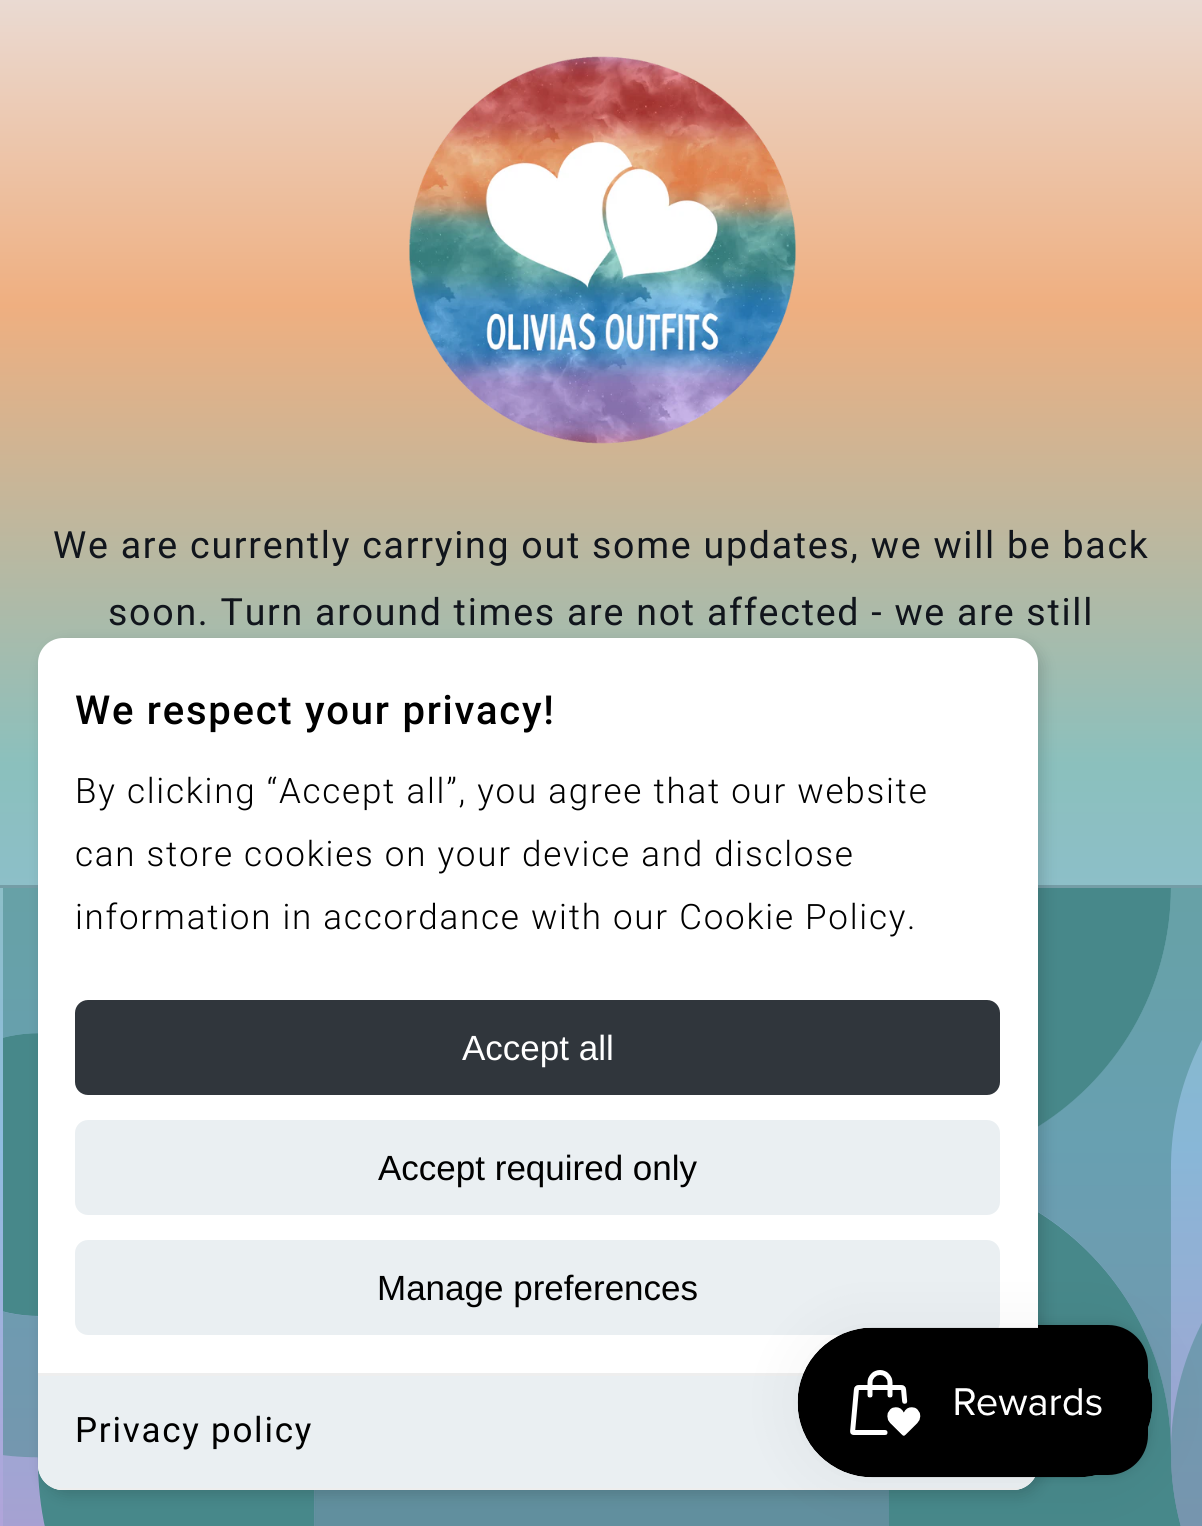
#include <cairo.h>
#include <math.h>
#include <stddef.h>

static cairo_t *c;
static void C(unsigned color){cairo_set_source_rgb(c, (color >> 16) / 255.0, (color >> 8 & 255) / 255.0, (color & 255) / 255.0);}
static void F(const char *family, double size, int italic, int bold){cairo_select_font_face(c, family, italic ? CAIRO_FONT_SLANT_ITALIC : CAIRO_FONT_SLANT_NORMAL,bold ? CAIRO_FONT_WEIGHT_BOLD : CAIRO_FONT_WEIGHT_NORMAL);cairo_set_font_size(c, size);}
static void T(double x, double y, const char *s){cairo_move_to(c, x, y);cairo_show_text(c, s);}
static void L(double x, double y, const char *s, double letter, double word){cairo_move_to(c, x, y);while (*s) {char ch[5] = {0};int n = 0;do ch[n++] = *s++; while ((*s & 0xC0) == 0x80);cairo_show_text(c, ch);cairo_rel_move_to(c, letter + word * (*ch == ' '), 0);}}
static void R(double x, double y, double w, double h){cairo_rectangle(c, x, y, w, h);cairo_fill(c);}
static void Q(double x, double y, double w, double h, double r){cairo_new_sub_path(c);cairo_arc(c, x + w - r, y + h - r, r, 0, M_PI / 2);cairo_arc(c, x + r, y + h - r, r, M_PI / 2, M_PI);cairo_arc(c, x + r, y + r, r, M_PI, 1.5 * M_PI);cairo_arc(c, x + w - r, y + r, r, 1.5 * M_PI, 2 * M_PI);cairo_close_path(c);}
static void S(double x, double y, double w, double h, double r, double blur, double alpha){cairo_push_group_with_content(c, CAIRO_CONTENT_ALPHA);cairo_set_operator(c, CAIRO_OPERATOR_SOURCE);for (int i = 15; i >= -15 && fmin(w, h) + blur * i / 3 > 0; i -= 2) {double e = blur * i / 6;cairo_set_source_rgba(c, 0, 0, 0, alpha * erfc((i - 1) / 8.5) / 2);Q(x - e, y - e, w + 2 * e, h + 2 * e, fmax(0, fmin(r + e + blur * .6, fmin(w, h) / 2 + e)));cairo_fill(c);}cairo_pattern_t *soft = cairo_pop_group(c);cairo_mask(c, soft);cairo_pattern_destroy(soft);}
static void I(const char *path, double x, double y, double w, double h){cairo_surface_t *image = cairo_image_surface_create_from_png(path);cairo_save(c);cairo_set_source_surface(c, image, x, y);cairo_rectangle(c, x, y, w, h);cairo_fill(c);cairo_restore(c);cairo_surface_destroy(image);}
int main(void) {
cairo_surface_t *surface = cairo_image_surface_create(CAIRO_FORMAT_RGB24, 1202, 1526);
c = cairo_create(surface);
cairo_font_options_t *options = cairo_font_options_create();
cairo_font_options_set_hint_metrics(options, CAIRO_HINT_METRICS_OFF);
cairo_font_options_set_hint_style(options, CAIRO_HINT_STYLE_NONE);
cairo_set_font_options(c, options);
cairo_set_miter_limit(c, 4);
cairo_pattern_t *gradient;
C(0xffffff);
cairo_paint(c);
gradient = cairo_pattern_create_linear(601,0,601,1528);
cairo_pattern_add_color_stop_rgba(gradient,0,0.918,0.855,0.824,1);
cairo_pattern_add_color_stop_rgba(gradient,.2,0.937,0.686,0.502,1);
cairo_pattern_add_color_stop_rgba(gradient,.5,0.545,0.753,0.741,1);
cairo_pattern_add_color_stop_rgba(gradient,.75,0.565,0.737,0.878,1);
cairo_pattern_add_color_stop_rgba(gradient,1,0.694,0.643,0.855,1);
cairo_set_source(c,gradient);
cairo_pattern_destroy(gradient);
R(0,0,1202,1526);
I("1.png",409,56,387,388);
F("Roboto",37.5,0,0);
C(0x11151c);
L(53,558,"We are currently carrying out some updates, we will be back",1.75,0);
L(108,625,"soon. Turn around times are not affected - we are still",1.75,0);
C(0x749da6);
R(0,885,1202,3);
I("2.png",3,888,1199,638);
C(0x000000);
S(865,1325,283,150,40,6,.15);
C(0x000000);
Q(865,1325,283,150,40);
cairo_fill(c);
C(0x000000);
S(43,643,1000,852,25,7.5,.15);
C(0xffffff);
Q(38,638,1000,852,25);
cairo_fill(c);
F("Roboto Medium",40,0,0);
C(0x000000);
L(75,724,"We respect your privacy!",1.75,0);
F("Roboto Light",35,0,0);
L(75,803,"By clicking “Accept all”, you agree that our website",1.75,0);
L(75,866,"can store cookies on your device and disclose",1.75,0);
L(75,929,"information in accordance with our Cookie Policy.",1.75,0);
C(0x30363c);
Q(75,1000,925,95,13);
cairo_fill(c);
F("Liberation Sans",35,0,0);
C(0xffffff);
T(462,1060,"Accept all");
C(0xeaeff2);
Q(75,1120,925,95,13);
cairo_fill(c);
C(0x000000);
T(378,1180,"Accept required only");
C(0xeaeff2);
Q(75,1240,925,95,13);
cairo_fill(c);
C(0x000000);
T(377,1300,"Manage preferences");
C(0xeaeff2);
cairo_new_path(c);
cairo_move_to(c,38,1373);
cairo_line_to(c,1038,1373);
cairo_line_to(c,1038,1465);
cairo_curve_to(c,1038,1479,1027,1490,1013,1490);
cairo_line_to(c,63,1490);
cairo_curve_to(c,49,1490,38,1479,38,1465);
cairo_close_path(c);
cairo_fill(c);
C(0xeeeeee);
R(38,1373,766,3);
cairo_save(c);
Q(38,638,1000,852,25);
cairo_clip(c);
R(53,1488,970,2);
cairo_restore(c);
F("Roboto",35,0,0);
C(0x000000);
L(75,1442,"Privacy policy",1.75,0);
C(0x000000);
S(798,1328,355,150,75,31,.05);
I("3.png",797,1327,356,151);
cairo_surface_write_to_png(surface, "o.png");
cairo_font_options_destroy(options);
cairo_destroy(c);
cairo_surface_destroy(surface);
return 0;
}
